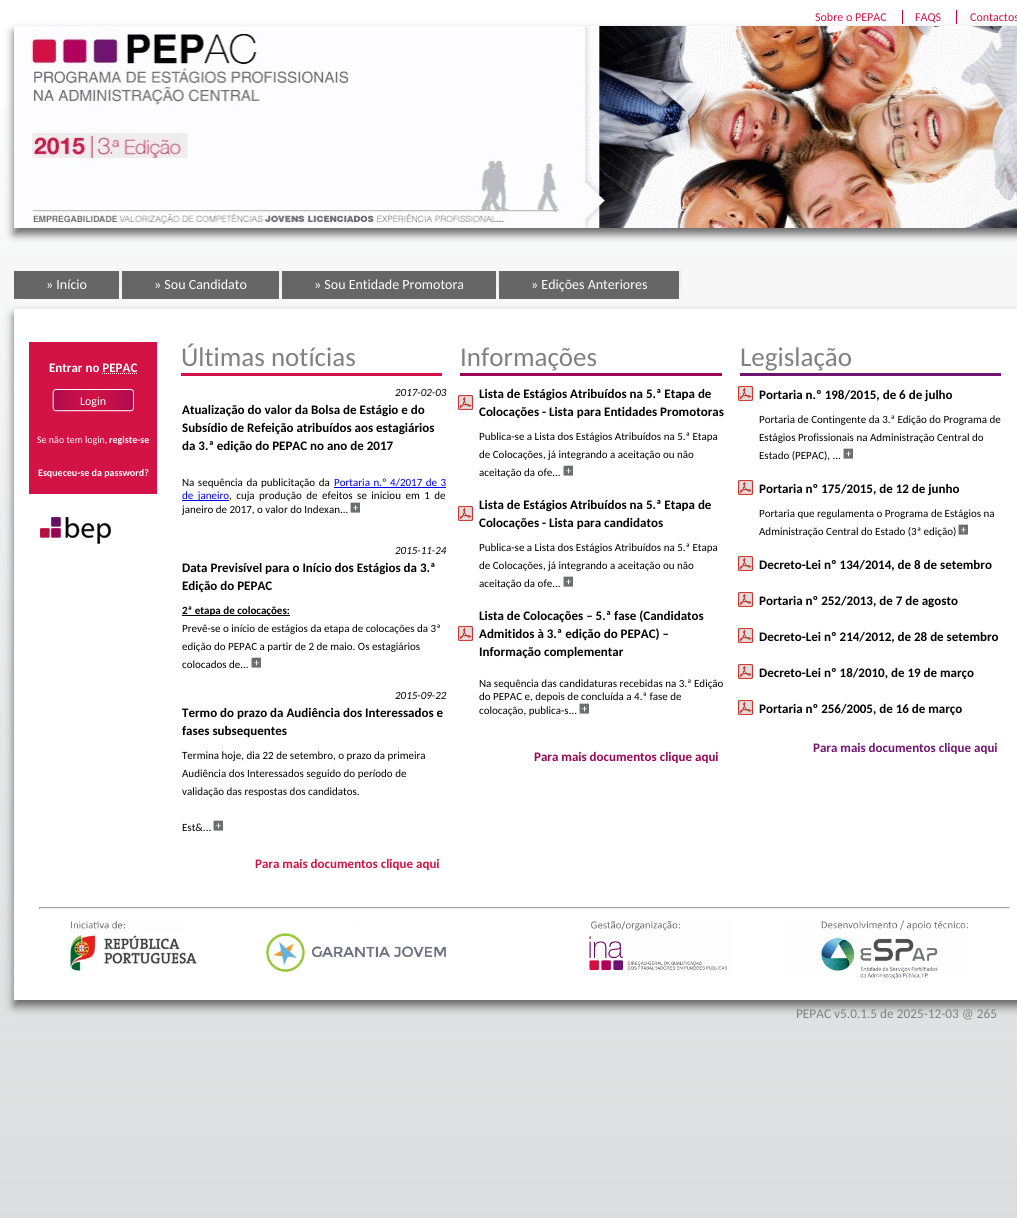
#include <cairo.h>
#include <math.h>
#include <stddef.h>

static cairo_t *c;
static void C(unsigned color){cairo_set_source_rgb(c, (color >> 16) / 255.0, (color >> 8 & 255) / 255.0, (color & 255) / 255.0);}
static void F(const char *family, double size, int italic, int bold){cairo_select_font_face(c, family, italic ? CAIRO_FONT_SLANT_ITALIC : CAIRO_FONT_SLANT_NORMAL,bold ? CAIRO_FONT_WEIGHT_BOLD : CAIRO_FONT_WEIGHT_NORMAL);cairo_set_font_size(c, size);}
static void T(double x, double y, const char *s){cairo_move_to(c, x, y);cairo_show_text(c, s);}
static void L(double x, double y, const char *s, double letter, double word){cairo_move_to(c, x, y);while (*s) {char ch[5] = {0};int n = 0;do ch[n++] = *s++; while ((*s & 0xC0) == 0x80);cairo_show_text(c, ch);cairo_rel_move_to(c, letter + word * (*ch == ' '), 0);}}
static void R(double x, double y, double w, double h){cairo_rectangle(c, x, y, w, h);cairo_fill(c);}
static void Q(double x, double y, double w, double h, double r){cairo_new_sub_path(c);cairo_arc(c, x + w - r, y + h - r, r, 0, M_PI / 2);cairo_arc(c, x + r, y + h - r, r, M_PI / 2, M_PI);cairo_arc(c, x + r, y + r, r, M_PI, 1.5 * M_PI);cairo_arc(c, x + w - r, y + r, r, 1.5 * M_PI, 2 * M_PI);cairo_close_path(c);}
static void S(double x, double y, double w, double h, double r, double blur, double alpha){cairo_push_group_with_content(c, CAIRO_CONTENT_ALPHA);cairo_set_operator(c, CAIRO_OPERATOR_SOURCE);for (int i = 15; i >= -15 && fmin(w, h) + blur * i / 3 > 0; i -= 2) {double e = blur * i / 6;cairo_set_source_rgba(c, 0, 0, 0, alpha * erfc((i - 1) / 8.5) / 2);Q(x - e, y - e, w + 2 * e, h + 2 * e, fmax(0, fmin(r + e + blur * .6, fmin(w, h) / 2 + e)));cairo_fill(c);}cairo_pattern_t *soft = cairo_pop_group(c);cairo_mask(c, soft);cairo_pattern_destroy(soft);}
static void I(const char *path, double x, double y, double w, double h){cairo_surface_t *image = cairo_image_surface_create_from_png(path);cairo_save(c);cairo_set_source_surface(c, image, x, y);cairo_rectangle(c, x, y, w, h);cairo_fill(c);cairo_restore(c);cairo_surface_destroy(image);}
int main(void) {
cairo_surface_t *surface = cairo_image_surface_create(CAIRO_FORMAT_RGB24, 1017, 1218);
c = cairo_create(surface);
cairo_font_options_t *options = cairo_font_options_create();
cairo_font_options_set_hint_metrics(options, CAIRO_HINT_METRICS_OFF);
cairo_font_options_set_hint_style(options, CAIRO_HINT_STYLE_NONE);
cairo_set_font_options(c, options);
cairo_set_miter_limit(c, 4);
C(0xffffff);
cairo_paint(c);
I("1.png",0,106,1017,1112);
F("Carlito",12,0,0);
C(0xd31245);
T(815,21,"Sobre o PEPAC");
C(0xcc0033);
R(902,10,1,14);
C(0xd31245);
T(915,21,"FAQS");
C(0xcc0033);
R(956,10,1,14);
C(0xd31245);
T(970,21,"Contactos");
C(0x666666);
S(14,32,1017,202,0,4.5,1);
I("2.png",14,26,1003,202);
C(0x666666);
R(14,271,105,28);
F("Carlito",14,0,0);
C(0xffffff);
T(46,289,"» Início");
C(0xefefef);
R(119,271,3,18);
C(0x666666);
R(122,271,157,28);
C(0xffffff);
T(154,289,"» Sou Candidato");
C(0xefefef);
R(279,271,3,18);
C(0x666666);
R(282,271,214,28);
C(0xffffff);
T(314,289,"» Sou Entidade Promotora");
C(0xefefef);
R(496,271,3,18);
C(0x666666);
R(499,271,180,28);
C(0xffffff);
T(531,289,"» Edições Anteriores");
C(0xefefef);
R(679,271,3,18);
C(0x666666);
S(14,315,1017,691,0,4.5,1);
C(0xffffff);
R(14,309,1003,691);
C(0xd31245);
R(29,342,128,152);
F("Carlito",13,0,1);
C(0xffffff);
T(49,372,"Entrar no PEPAC");
cairo_new_path(c);
cairo_move_to(c,102,373.5);
cairo_line_to(c,137,373.5);
cairo_set_line_width(c,1);
cairo_set_dash(c,(double[]){1,1},2,0);
cairo_stroke(c);
I("3.png",52,389,82,23);
F("Carlito",12,0,0);
T(80,405,"Login");
F("Carlito",10,0,0);
T(37,443,"Se não tem login,");
F("Carlito",10,0,1);
T(109,443,"registe-se");
T(38,476,"Esqueceu-se da password?");
I("4.png",40,517,71,27);
C(0xd31245);
R(181,373,261,3);
F("Carlito",27,0,0);
C(0x808080);
T(181,366,"Últimas notícias");
F("Carlito",11,1,0);
C(0x000000);
T(395,396,"2017-02-03");
F("Carlito",13,0,1);
T(182,414,"Atualização do valor da Bolsa de Estágio e do");
T(182,432,"Subsídio de Refeição atribuídos aos estagiários");
T(182,450,"da 3.ª edição do PEPAC no ano de 2017");
F("Carlito",11,0,0);
L(182,486,"Na sequência da publicitação da",0,1);
C(0x0000ee);
L(334,486,"Portaria n.º 4/2017 de 3",0,1);
R(334,487,112,1);
R(182,500,47,1);
L(182,499,"de janeiro",0,2);
C(0x000000);
L(229,499,", cuja produção de efeitos se iniciou em 1 de",0,2);
T(182,513,"janeiro de 2017, o valor do Indexan...");
I("5.png",350,502,10,11);
F("Carlito",11,1,0);
T(395,554,"2015-11-24");
F("Carlito",13,0,1);
T(182,572,"Data Previsível para o Início dos Estágios da 3.ª");
T(182,590,"Edição do PEPAC");
R(182,615,108,1);
F("Carlito",11,0,1);
T(182,614,"2ª etapa de colocações:");
F("Carlito",11,0,0);
T(182,632,"Prevê-se o início de estágios da etapa de colocações da 3ª");
T(182,650,"edição do PEPAC a partir de 2 de maio. Os estagiários");
T(182,668,"colocados de...");
I("5.png",251,657,10,11);
F("Carlito",11,1,0);
T(395,699,"2015-09-22");
F("Carlito",13,0,1);
T(182,717,"Termo do prazo da Audiência dos Interessados e");
T(182,735,"fases subsequentes");
F("Carlito",11,0,0);
T(182,759,"Termina hoje, dia 22 de setembro, o prazo da primeira");
T(182,777,"Audiência dos Interessados seguido do período de");
T(182,795,"validação das respostas dos candidatos.");
T(182,831,"Est&...");
I("5.png",213,820,10,11);
F("Carlito",13,0,1);
C(0xd31245);
T(255,868,"Para mais documentos clique aqui");
C(0x990554);
R(460,373,262,3);
F("Carlito",27,0,0);
C(0x808080);
T(460,366,"Informações");
I("6.png",458,395,15,15);
F("Carlito",13,0,1);
C(0x000000);
T(479,398,"Lista de Estágios Atribuídos na 5.ª Etapa de");
T(479,416,"Colocações - Lista para Entidades Promotoras");
F("Carlito",11,0,0);
T(479,440,"Publica-se a Lista dos Estágios Atribuídos na 5.ª Etapa");
T(479,458,"de Colocações, já integrando a aceitação ou não");
T(479,476,"aceitação da ofe...");
I("5.png",563,465,10,11);
I("6.png",458,506,15,15);
F("Carlito",13,0,1);
T(479,509,"Lista de Estágios Atribuídos na 5.ª Etapa de");
T(479,527,"Colocações - Lista para candidatos");
F("Carlito",11,0,0);
T(479,551,"Publica-se a Lista dos Estágios Atribuídos na 5.ª Etapa");
T(479,569,"de Colocações, já integrando a aceitação ou não");
T(479,587,"aceitação da ofe...");
I("5.png",563,576,10,11);
I("6.png",458,626,15,15);
F("Carlito",13,0,1);
T(479,620,"Lista de Colocações – 5.ª fase (Candidatos");
T(479,638,"Admitidos à 3.ª edição do PEPAC) –");
T(479,656,"Informação complementar");
F("Carlito",11,0,0);
T(479,687,"Na sequência das candidaturas recebidas na 3.ª Edição");
T(479,700,"do PEPAC e, depois de concluída a 4.ª fase de");
T(479,714,"colocação, publica-s...");
I("5.png",579,703,10,11);
F("Carlito",13,0,1);
C(0x990554);
T(534,761,"Para mais documentos clique aqui");
C(0x711471);
R(740,373,261,3);
F("Carlito",27,0,0);
C(0x808080);
T(740,366,"Legislação");
I("6.png",738,386,15,15);
F("Carlito",13,0,1);
C(0x000000);
T(759,399,"Portaria n.º 198/2015, de 6 de julho");
F("Carlito",11,0,0);
T(759,423,"Portaria de Contingente da 3.ª Edição do Programa de");
T(759,441,"Estágios Profissionais na Administração Central do");
T(759,459,"Estado (PEPAC), ...");
I("5.png",843,448,10,11);
I("6.png",738,480,15,15);
F("Carlito",13,0,1);
T(759,493,"Portaria nº 175/2015, de 12 de junho");
F("Carlito",11,0,0);
T(759,517,"Portaria que regulamenta o Programa de Estágios na");
T(759,535,"Administração Central do Estado (3ª edição)");
I("5.png",958,524,10,11);
I("6.png",738,556,15,15);
F("Carlito",13,0,1);
T(759,569,"Decreto-Lei nº 134/2014, de 8 de setembro");
I("6.png",738,592,15,15);
T(759,605,"Portaria nº 252/2013, de 7 de agosto");
I("6.png",738,628,15,15);
T(759,641,"Decreto-Lei nº 214/2012, de 28 de setembro");
I("6.png",738,664,15,15);
T(759,677,"Decreto-Lei nº 18/2010, de 19 de março");
I("6.png",738,700,15,15);
T(759,713,"Portaria nº 256/2005, de 16 de março");
C(0x711471);
T(813,752,"Para mais documentos clique aqui");
C(0x9f9f9f);
R(39,907,971,1);
C(0xeeeeee);
R(1009,907,1,2);
R(39,908,971,1);
C(0x9f9f9f);
R(39,907,1,2);
I("7.png",69,920,899,59);
F("Carlito",13.3,0,0);
C(0x808080);
T(796,1018,"PEPAC v5.0.1.5 de 2025-12-03 @ 265");
cairo_surface_write_to_png(surface, "o.png");
cairo_font_options_destroy(options);
cairo_destroy(c);
cairo_surface_destroy(surface);
return 0;
}
